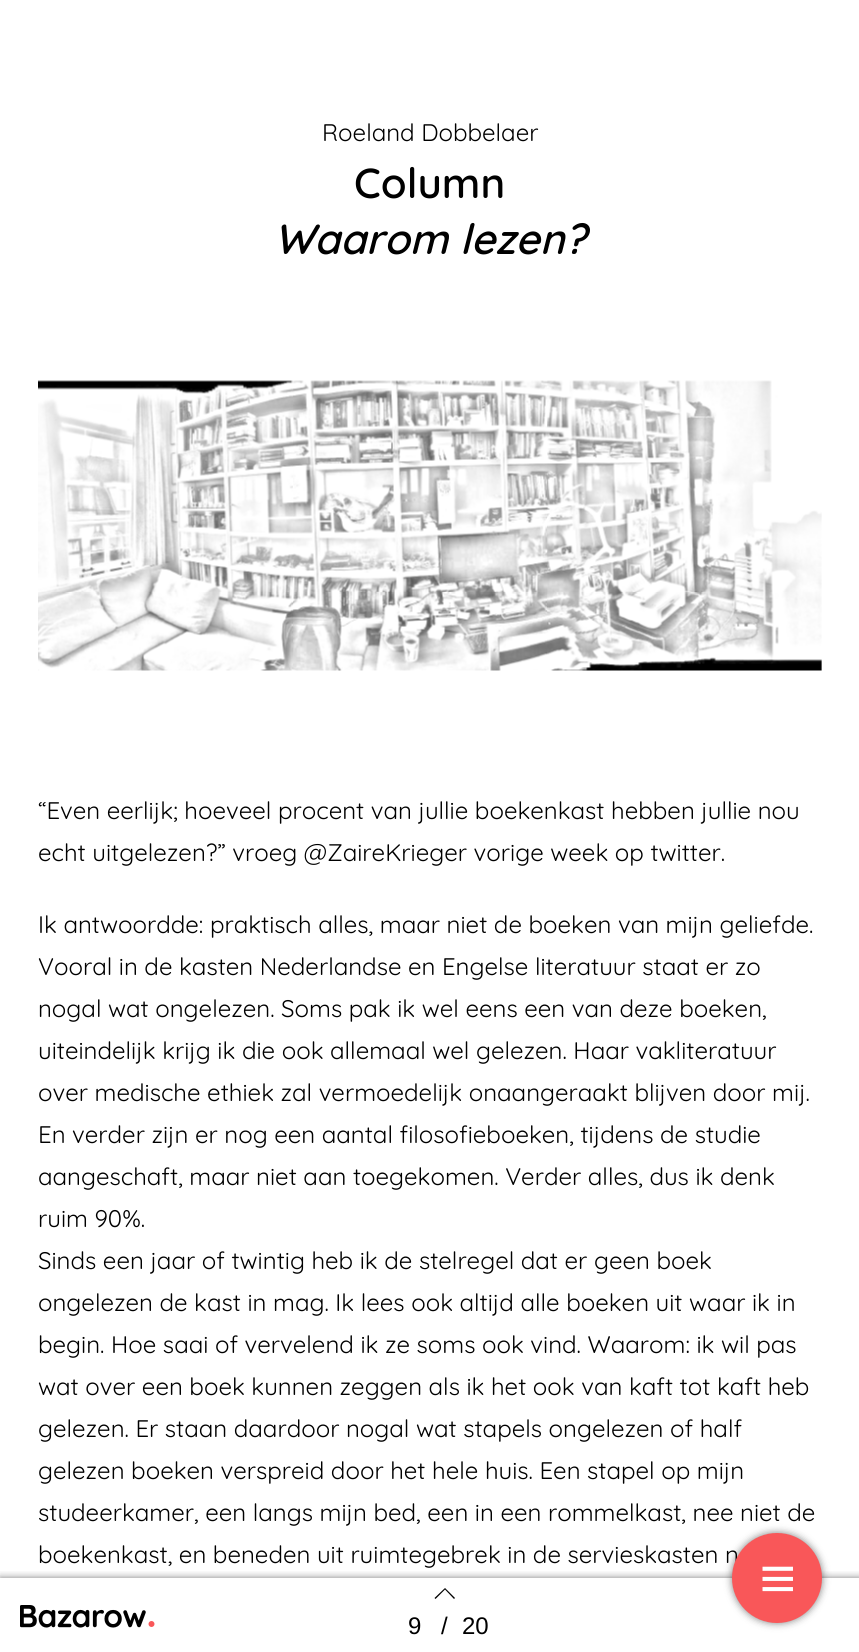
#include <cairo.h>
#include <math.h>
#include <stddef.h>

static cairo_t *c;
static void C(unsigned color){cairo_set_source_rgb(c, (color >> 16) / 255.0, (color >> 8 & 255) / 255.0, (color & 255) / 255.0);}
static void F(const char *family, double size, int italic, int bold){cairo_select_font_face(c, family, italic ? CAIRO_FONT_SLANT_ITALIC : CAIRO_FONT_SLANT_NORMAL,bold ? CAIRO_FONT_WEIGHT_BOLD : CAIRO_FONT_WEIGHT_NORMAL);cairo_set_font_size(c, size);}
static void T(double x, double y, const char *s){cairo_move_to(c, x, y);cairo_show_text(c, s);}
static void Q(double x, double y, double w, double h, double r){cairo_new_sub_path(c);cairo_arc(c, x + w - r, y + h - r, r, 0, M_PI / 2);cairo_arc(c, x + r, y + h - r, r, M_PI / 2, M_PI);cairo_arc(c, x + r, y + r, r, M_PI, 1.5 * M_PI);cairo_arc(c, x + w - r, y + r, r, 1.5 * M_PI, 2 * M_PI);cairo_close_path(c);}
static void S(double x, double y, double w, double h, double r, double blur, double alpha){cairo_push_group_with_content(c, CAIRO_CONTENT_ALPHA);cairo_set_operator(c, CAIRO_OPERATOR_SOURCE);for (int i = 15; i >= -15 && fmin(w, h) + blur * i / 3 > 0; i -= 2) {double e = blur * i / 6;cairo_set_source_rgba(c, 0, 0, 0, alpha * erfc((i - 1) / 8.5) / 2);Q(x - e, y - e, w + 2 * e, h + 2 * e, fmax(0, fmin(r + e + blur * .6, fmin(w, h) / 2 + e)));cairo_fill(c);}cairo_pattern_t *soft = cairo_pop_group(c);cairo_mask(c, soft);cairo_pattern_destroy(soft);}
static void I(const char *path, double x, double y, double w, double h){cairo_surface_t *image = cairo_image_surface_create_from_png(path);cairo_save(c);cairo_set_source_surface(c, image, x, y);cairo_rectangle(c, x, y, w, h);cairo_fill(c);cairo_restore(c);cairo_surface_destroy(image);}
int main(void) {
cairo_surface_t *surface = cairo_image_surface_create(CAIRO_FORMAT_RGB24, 859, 1652);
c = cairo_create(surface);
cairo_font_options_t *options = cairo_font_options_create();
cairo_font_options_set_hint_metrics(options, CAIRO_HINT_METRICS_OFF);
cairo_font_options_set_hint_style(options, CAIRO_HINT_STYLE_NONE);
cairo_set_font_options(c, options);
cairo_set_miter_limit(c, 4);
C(0xffffff);
cairo_paint(c);
F("Quicksand",24,0,0);
C(0x000000);
T(322,141,"Roeland Dobbelaer");
F("Quicksand SemiBold",42,0,0);
T(354,198,"Column");
F("Quicksand SemiBold",42,1,0);
T(274,254,"Waarom lezen?");
I("1.png",38,380,784,291);
F("Quicksand",24,0,0);
T(38,819,"“Even eerlijk; hoeveel procent van jullie boekenkast hebben jullie nou");
T(38,861,"echt uitgelezen?” vroeg @ZaireKrieger vorige week op twitter.");
T(38,933,"Ik antwoordde: praktisch alles, maar niet de boeken van mijn geliefde.");
T(38,975,"Vooral in de kasten Nederlandse en Engelse literatuur staat er zo");
T(38,1017,"nogal wat ongelezen. Soms pak ik wel eens een van deze boeken,");
T(38,1059,"uiteindelijk krijg ik die ook allemaal wel gelezen. Haar vakliteratuur");
T(38,1101,"over medische ethiek zal vermoedelijk onaangeraakt blijven door mij.");
T(38,1143,"En verder zijn er nog een aantal filosofieboeken, tijdens de studie");
T(38,1185,"aangeschaft, maar niet aan toegekomen. Verder alles, dus ik denk");
T(38,1227,"ruim 90%.");
T(38,1269,"Sinds een jaar of twintig heb ik de stelregel dat er geen boek");
T(38,1311,"ongelezen de kast in mag. Ik lees ook altijd alle boeken uit waar ik in");
T(38,1353,"begin. Hoe saai of vervelend ik ze soms ook vind. Waarom: ik wil pas");
T(38,1395,"wat over een boek kunnen zeggen als ik het ook van kaft tot kaft heb");
T(38,1437,"gelezen. Er staan daardoor nogal wat stapels ongelezen of half");
T(38,1479,"gelezen boeken verspreid door het hele huis. Een stapel op mijn");
T(38,1521,"studeerkamer, een langs mijn bed, een in een rommelkast, nee niet de");
T(38,1563,"boekenkast, en beneden uit ruimtegebrek in de servieskasten n");
cairo_save(c);
cairo_rectangle(c,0,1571,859,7);
cairo_clip(c);
C(0x000000);
S(0,1578,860,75,0,4,.5);
cairo_restore(c);
I("2.png",20,1605,135,23);
cairo_new_path(c);
cairo_move_to(c,455,1598);
cairo_line_to(c,454,1599);
cairo_line_to(c,445,1589.5);
cairo_line_to(c,435.5,1599);
cairo_line_to(c,434.5,1598);
cairo_line_to(c,445,1588);
cairo_close_path(c);
cairo_fill(c);
F("Liberation Sans",24,0,0);
T(408,1634,"9");
T(441,1634,"/");
T(462,1634,"20");
C(0x000000);
S(732,1533,90,90,45,4,.5);
C(0xf95759);
cairo_arc(c,777,1578,45,0,2 * M_PI);
cairo_fill(c);
I("3.png",762,1566,31,26);
cairo_surface_write_to_png(surface, "o.png");
cairo_font_options_destroy(options);
cairo_destroy(c);
cairo_surface_destroy(surface);
return 0;
}
